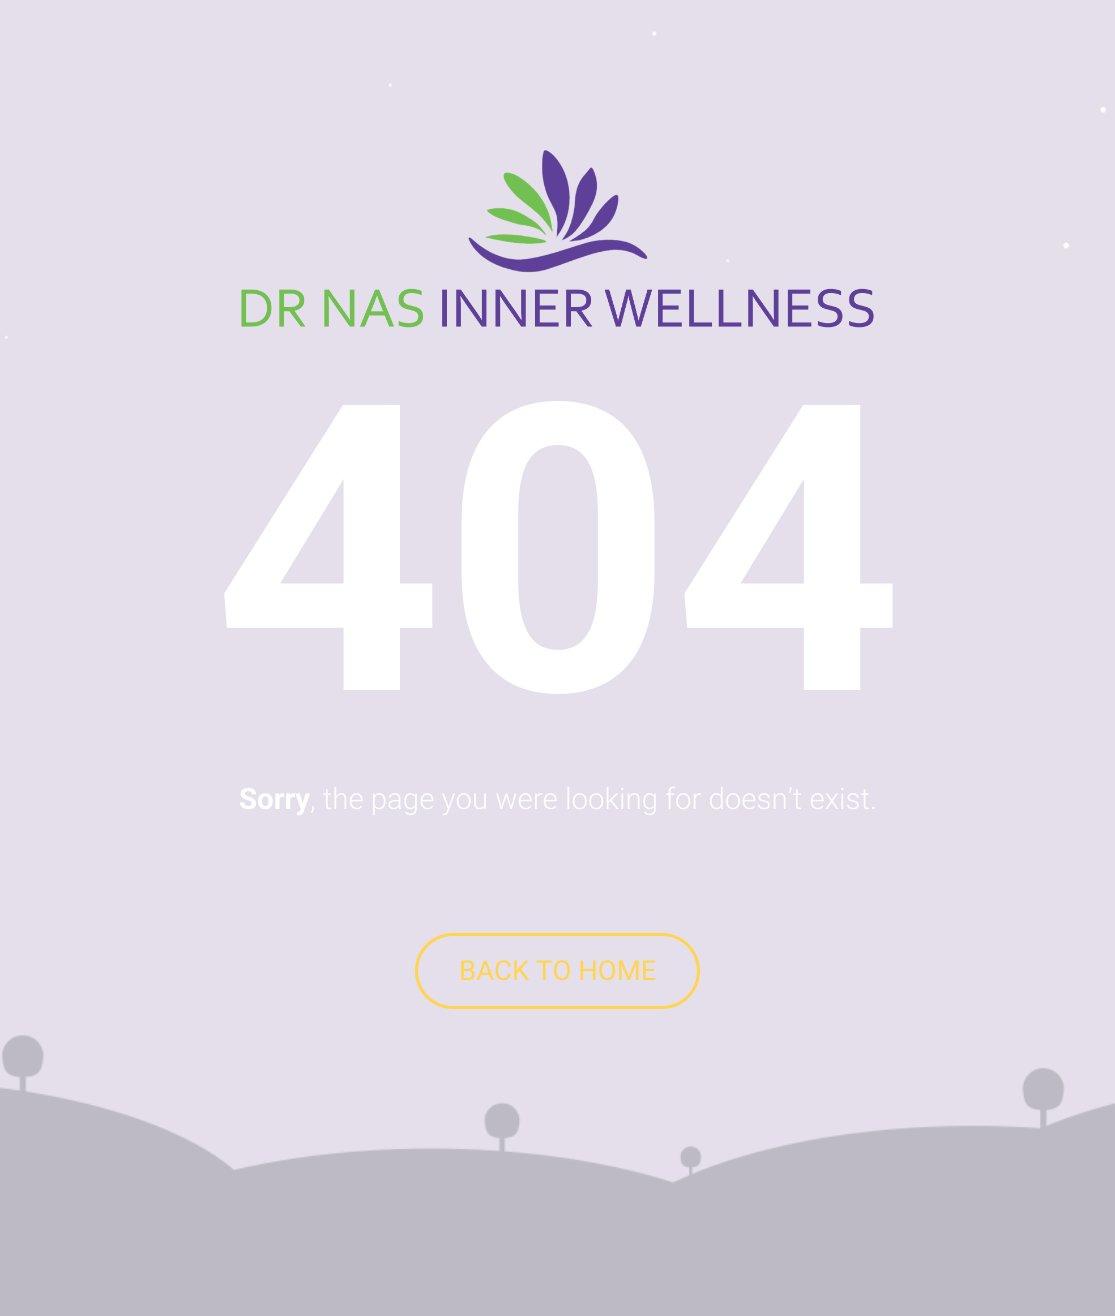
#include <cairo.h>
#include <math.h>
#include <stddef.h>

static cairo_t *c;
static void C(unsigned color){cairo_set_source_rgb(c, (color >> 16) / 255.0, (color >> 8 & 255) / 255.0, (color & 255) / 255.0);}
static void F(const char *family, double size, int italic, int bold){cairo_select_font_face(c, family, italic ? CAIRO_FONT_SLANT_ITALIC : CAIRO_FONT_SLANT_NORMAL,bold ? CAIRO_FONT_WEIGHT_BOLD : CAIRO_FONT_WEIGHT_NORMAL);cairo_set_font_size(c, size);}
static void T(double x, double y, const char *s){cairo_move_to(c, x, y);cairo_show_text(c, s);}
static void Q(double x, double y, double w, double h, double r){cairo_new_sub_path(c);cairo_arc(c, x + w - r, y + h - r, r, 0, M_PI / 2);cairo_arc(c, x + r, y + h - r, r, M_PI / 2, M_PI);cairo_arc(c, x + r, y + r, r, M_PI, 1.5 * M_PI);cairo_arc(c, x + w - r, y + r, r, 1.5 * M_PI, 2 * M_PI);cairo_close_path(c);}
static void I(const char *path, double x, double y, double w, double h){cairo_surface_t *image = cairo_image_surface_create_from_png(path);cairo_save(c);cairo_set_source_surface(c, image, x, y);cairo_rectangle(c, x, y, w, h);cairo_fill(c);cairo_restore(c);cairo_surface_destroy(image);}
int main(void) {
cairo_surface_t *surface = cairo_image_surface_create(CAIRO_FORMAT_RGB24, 1115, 1316);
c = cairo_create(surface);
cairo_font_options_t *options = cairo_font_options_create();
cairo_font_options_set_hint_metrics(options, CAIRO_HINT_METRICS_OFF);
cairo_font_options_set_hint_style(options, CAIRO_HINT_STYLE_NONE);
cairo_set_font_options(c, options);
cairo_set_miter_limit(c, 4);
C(0xe4dfeb);
cairo_paint(c);
I("1.png",0,31,1115,1285);
I("2.png",241,150,633,178);
F("Roboto",401,0,1);
C(0xffffff);
T(213,690,"404");
F("Roboto",29.4,0,1);
T(239,809,"Sorry");
F("Roboto Light",29.4,0,0);
T(310,809,", the page you were looking for doesn’t exist.");
Q(416.5,934.5,282,73,36.5);
C(0xffd54f);
cairo_set_line_width(c,3);
cairo_stroke(c);
F("Roboto",27.5,0,0);
T(459,980,"BACK TO HOME");
cairo_surface_write_to_png(surface, "o.png");
cairo_font_options_destroy(options);
cairo_destroy(c);
cairo_surface_destroy(surface);
return 0;
}
